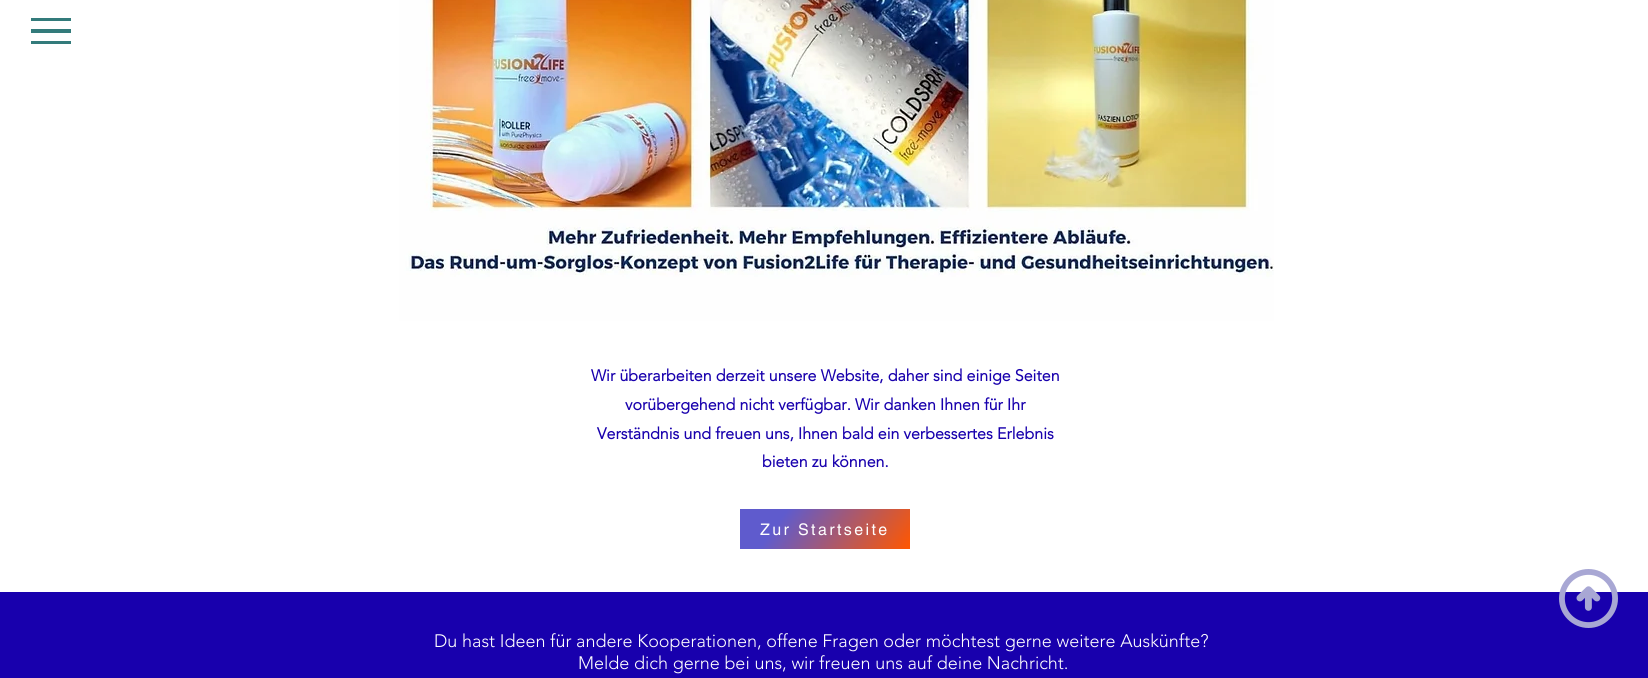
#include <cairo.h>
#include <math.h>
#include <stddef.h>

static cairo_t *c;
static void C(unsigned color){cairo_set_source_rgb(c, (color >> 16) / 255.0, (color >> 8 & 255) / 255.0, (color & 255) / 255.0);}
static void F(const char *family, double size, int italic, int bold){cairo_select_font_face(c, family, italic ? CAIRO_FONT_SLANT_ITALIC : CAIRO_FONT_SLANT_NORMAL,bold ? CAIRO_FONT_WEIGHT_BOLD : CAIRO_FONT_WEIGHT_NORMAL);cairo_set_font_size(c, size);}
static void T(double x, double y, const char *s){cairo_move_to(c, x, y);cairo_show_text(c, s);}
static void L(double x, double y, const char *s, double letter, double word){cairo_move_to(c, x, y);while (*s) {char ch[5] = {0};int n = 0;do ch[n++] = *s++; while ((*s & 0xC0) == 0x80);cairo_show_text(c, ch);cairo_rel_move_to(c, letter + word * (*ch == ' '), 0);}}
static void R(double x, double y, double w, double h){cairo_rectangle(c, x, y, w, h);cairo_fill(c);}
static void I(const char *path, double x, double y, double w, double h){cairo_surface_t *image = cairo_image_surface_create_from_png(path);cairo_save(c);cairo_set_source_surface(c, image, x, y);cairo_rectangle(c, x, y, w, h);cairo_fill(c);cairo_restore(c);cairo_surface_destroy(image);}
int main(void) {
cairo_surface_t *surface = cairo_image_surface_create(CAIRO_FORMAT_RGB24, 1648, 678);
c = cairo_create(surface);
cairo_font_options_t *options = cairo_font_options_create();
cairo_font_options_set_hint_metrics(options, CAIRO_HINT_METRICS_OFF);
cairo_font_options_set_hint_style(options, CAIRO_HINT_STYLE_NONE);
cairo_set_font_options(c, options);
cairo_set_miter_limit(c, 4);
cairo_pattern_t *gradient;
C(0xffffff);
cairo_paint(c);
C(0x337b7b);
R(31,41,40,3);
R(31,18,40,3);
R(31,29,40,4);
I("1.png",399,0,875,321);
F("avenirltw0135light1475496",16,0,1);
C(0x1800ad);
T(591,381,"Wir überarbeiten derzeit unsere Website, daher sind einige Seiten");
T(625,410,"vorübergehend nicht verfügbar. Wir danken Ihnen für Ihr");
T(597,439,"Verständnis und freuen uns, Ihnen bald ein verbessertes Erlebnis");
T(762,467,"bieten zu können.");
gradient = cairo_pattern_create_linear(760,482,890,576);
cairo_pattern_add_color_stop_rgba(gradient,.24,0.373,0.357,0.804,1);
cairo_pattern_add_color_stop_rgba(gradient,1,1,0.341,0,1);
cairo_set_source(c,gradient);
cairo_pattern_destroy(gradient);
R(740,509,170,40);
F("helvetica",16,0,0);
C(0xffffff);
L(760,535,"Zur Startseite",2.4,0);
C(0x1800ad);
R(0,592,1648,86);
I("2.png",1559,569,59,59);
F("avenirltw0135light1475496 Light",18,0,0);
C(0xffffff);
T(434,647,"Du hast Ideen für andere Kooperationen, offene Fragen oder möchtest gerne weitere Auskünfte?");
T(578,669,"Melde dich gerne bei uns, wir freuen uns auf deine Nachricht.");
cairo_surface_write_to_png(surface, "o.png");
cairo_font_options_destroy(options);
cairo_destroy(c);
cairo_surface_destroy(surface);
return 0;
}
